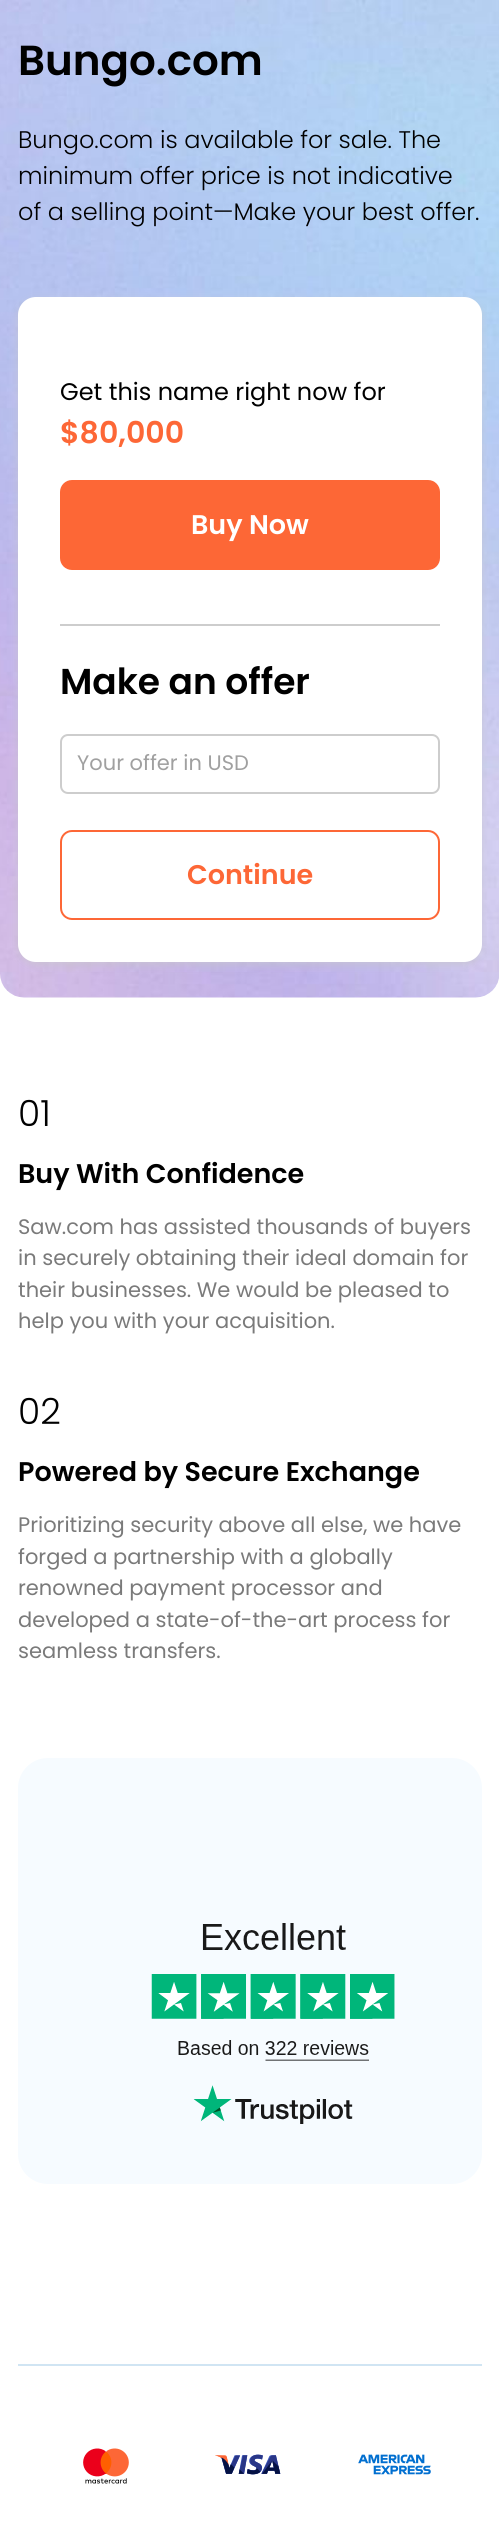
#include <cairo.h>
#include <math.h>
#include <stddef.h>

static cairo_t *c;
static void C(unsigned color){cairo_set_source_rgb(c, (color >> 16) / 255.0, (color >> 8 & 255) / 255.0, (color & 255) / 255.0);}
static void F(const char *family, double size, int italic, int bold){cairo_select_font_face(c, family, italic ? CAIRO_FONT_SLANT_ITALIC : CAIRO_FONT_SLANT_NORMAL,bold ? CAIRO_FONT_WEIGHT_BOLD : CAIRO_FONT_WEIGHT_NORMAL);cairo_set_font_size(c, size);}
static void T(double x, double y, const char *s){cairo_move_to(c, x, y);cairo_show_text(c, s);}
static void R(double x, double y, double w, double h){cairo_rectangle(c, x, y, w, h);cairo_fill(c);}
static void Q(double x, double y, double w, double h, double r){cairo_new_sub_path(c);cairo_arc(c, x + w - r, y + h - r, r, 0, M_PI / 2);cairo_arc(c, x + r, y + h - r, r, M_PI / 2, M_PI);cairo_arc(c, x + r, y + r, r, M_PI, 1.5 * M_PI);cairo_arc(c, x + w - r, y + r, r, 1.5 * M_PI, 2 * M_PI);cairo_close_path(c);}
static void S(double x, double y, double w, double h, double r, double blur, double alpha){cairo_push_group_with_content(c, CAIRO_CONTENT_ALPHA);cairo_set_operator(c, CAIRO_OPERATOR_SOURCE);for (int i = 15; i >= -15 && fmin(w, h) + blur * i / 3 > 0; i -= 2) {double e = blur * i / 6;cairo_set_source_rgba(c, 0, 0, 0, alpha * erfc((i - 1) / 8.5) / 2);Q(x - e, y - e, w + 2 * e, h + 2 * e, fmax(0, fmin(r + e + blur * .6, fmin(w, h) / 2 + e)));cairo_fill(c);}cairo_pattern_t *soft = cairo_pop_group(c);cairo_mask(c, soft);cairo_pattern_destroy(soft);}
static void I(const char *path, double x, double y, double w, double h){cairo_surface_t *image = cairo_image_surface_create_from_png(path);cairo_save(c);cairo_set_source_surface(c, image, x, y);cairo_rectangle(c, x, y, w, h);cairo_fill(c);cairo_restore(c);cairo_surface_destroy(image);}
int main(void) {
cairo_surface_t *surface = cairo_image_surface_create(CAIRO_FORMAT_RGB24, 499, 2525);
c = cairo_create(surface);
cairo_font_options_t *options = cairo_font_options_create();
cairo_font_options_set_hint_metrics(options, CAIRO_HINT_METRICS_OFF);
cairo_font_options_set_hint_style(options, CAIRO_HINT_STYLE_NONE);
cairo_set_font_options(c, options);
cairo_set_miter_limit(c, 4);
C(0xffffff);
cairo_paint(c);
I("1.png",0,0,499,998);
F("Poppins SemiBold",42,0,0);
C(0x000000);
T(18,75,"Bungo.com");
F("Poppins Light",24,0,0);
T(18,148,"Bungo.com is available for sale. The");
T(18,184,"minimum offer price is not indicative");
T(18,220,"of a selling point—Make your best offer.");
C(0xc9c9c9);
S(18,300,464,665,18,4,.6);
C(0xffffff);
Q(18,297,464,665,18);
cairo_fill(c);
F("Poppins",24,0,0);
C(0x000000);
T(60,400,"Get this name right now for");
F("Poppins SemiBold",30,0,0);
C(0xfd6736);
T(60,443,"$80,000");
Q(60,480,380,90,12);
cairo_fill(c);
F("Poppins SemiBold",27,0,0);
C(0xffffff);
T(191,534,"Buy Now");
C(0xcdcdcd);
R(60,624,380,2);
F("Poppins SemiBold",36,0,0);
C(0x000000);
T(60,694,"Make an offer");
Q(61,735,378,58,7);
C(0xcdcdcd);
cairo_stroke(c);
F("Poppins",21,0,0);
C(0xa0a0a0);
T(77,770,"Your offer in USD");
Q(61,831,378,88,11);
C(0xfd6736);
cairo_stroke(c);
F("Poppins SemiBold",27,0,0);
T(187,884,"Continue");
F("Poppins Light",36,0,0);
C(0x000000);
T(18,1126,"01");
F("Poppins SemiBold",27,0,0);
T(18,1183,"Buy With Confidence");
F("Poppins",21,0,0);
C(0x7a7a7a);
T(18,1234,"Saw.com has assisted thousands of buyers");
T(18,1265,"in securely obtaining their ideal domain for");
T(18,1297,"their businesses. We would be pleased to");
T(18,1328,"help you with your acquisition.");
F("Poppins Light",36,0,0);
C(0x000000);
T(18,1424,"02");
F("Poppins SemiBold",27,0,0);
T(18,1481,"Powered by Secure Exchange");
F("Poppins",21,0,0);
C(0x7a7a7a);
T(18,1532,"Prioritizing security above all else, we have");
T(18,1564,"forged a partnership with a globally");
T(18,1595,"renowned payment processor and");
T(18,1627,"developed a state-of-the-art process for");
T(18,1658,"seamless transfers.");
C(0xf6fbff);
Q(18,1758,464,426,30);
cairo_fill(c);
I("2.png",151,1923,244,201);
C(0xd1e5f3);
R(18,2364,464,2);
I("3.png",83,2448,46,36);
I("4.png",215,2454,66,21);
I("5.png",358,2454,73,21);
cairo_surface_write_to_png(surface, "o.png");
cairo_font_options_destroy(options);
cairo_destroy(c);
cairo_surface_destroy(surface);
return 0;
}
